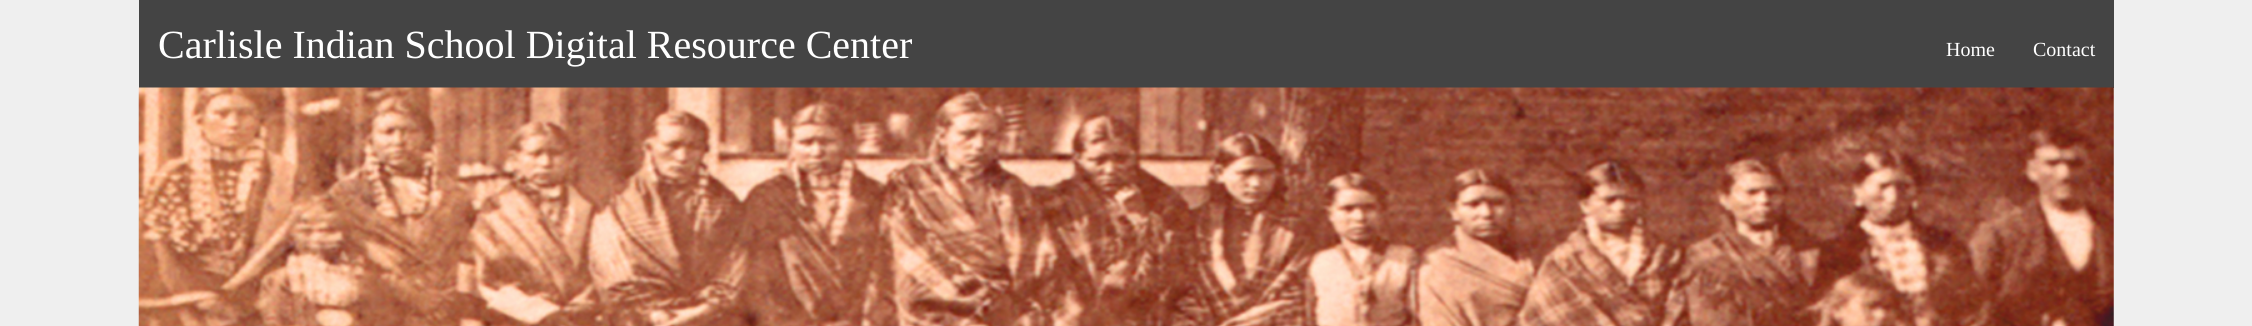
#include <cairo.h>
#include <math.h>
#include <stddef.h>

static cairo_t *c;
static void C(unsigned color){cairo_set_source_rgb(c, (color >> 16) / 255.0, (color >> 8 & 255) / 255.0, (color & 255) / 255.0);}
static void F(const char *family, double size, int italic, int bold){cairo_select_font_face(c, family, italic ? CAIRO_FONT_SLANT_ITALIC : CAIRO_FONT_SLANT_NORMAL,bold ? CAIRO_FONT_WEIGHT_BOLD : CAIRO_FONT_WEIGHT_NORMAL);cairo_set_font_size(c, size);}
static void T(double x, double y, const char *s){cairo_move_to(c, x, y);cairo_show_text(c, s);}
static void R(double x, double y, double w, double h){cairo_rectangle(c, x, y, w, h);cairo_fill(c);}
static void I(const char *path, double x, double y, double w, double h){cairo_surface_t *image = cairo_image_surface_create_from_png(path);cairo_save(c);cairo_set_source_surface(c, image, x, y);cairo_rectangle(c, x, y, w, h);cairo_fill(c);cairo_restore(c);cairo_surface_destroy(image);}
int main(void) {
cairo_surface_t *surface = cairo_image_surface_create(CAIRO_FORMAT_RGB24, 2252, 326);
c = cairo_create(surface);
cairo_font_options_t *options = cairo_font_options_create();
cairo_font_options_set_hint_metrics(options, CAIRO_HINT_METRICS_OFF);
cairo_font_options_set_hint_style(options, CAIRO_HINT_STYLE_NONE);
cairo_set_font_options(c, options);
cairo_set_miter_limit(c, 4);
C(0xefefef);
cairo_paint(c);
C(0x444444);
R(139,0,1975,88);
F("Liberation Serif",40,0,0);
C(0xffffff);
T(158,58,"Carlisle Indian School Digital Resource Center");
F("Liberation Serif",20,0,0);
T(1946,56,"Home");
T(2033,56,"Contact");
I("1.png",138,87,1976,239);
cairo_surface_write_to_png(surface, "o.png");
cairo_font_options_destroy(options);
cairo_destroy(c);
cairo_surface_destroy(surface);
return 0;
}
